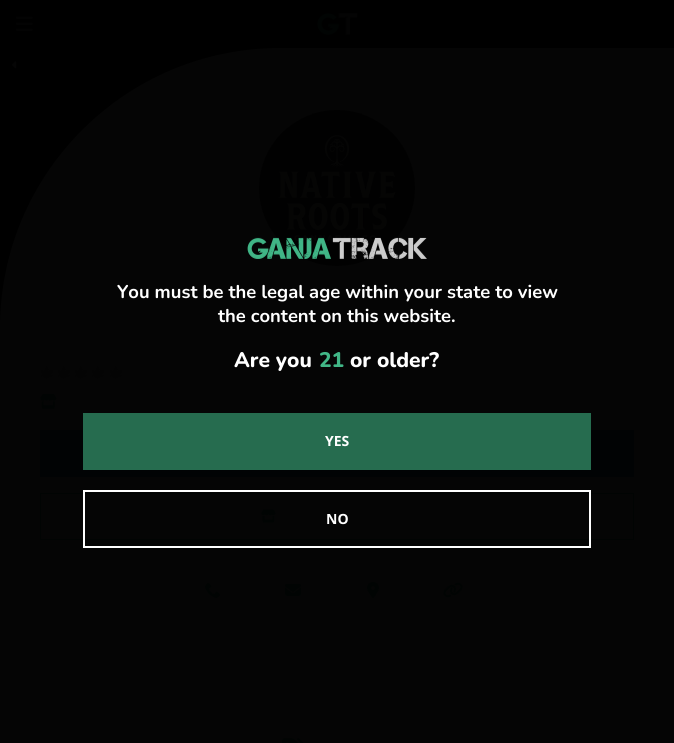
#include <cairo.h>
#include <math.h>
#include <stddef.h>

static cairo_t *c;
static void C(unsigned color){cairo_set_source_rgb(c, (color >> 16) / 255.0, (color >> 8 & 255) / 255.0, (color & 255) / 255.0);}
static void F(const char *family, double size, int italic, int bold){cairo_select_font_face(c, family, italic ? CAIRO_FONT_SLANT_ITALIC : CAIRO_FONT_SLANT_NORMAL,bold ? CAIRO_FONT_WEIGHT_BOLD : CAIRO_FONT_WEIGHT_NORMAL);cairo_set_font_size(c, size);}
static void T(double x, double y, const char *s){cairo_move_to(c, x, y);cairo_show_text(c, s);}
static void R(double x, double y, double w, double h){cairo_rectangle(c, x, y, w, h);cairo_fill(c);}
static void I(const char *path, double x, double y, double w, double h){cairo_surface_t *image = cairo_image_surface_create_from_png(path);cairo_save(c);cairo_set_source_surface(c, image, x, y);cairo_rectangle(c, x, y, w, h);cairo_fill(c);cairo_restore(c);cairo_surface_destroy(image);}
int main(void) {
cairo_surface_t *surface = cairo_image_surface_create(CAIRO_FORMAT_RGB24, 674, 743);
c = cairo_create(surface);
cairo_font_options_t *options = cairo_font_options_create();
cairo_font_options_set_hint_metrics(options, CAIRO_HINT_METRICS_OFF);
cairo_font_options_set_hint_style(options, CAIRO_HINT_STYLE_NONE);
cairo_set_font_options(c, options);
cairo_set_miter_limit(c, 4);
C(0x050505);
cairo_paint(c);
C(0x000000);
R(0,0,674,48);
I("1.png",16,16,17,15);
I("2.png",317,13,41,22);
I("3.png",0,48,278,279);
C(0x050505);
cairo_new_path(c);
cairo_move_to(c,280,48);
cairo_line_to(c,674,48);
cairo_line_to(c,674,676);
cairo_line_to(c,0,676);
cairo_line_to(c,0,328);
cairo_curve_to(c,0,173.5,125.5,48,280,48);
cairo_close_path(c);
cairo_fill(c);
I("4.png",259,110,156,156);
I("5.png",40,366,13,14);
I("5.png",57,366,13,14);
I("5.png",74,366,13,14);
I("5.png",91,366,13,14);
I("5.png",109,366,13,14);
I("6.png",40,394,17,15);
C(0x010304);
R(40,430,594,47);
cairo_rectangle(c,40.5,493.5,593,46);
C(0x010403);
cairo_set_line_width(c,1);
cairo_stroke(c);
I("7.png",261,509,15,14);
I("8.png",205,583,15,15);
I("9.png",285,584,16,12);
I("10.png",367,582,12,16);
I("11.png",443,582,20,16);
I("12.png",12,61,5,8);
I("13.png",282,738,22,5);
I("14.png",247,237,180,22);
F("Nunito",18.4,0,1);
C(0xffffff);
T(117,298,"You must be the legal age within your state to view");
T(218,322,"the content on this website.");
F("Nunito ExtraBold",21,0,0);
T(234,367,"Are you");
C(0x41b787);
T(319,367,"21");
C(0xffffff);
T(350,367,"or older?");
C(0x266c4f);
R(83,413,508,57);
F("Open Sans",14,0,1);
C(0xffffff);
T(325,446,"YES");
cairo_rectangle(c,84,491,506,56);
cairo_set_line_width(c,2);
cairo_stroke(c);
T(326,524,"NO");
cairo_surface_write_to_png(surface, "o.png");
cairo_font_options_destroy(options);
cairo_destroy(c);
cairo_surface_destroy(surface);
return 0;
}
